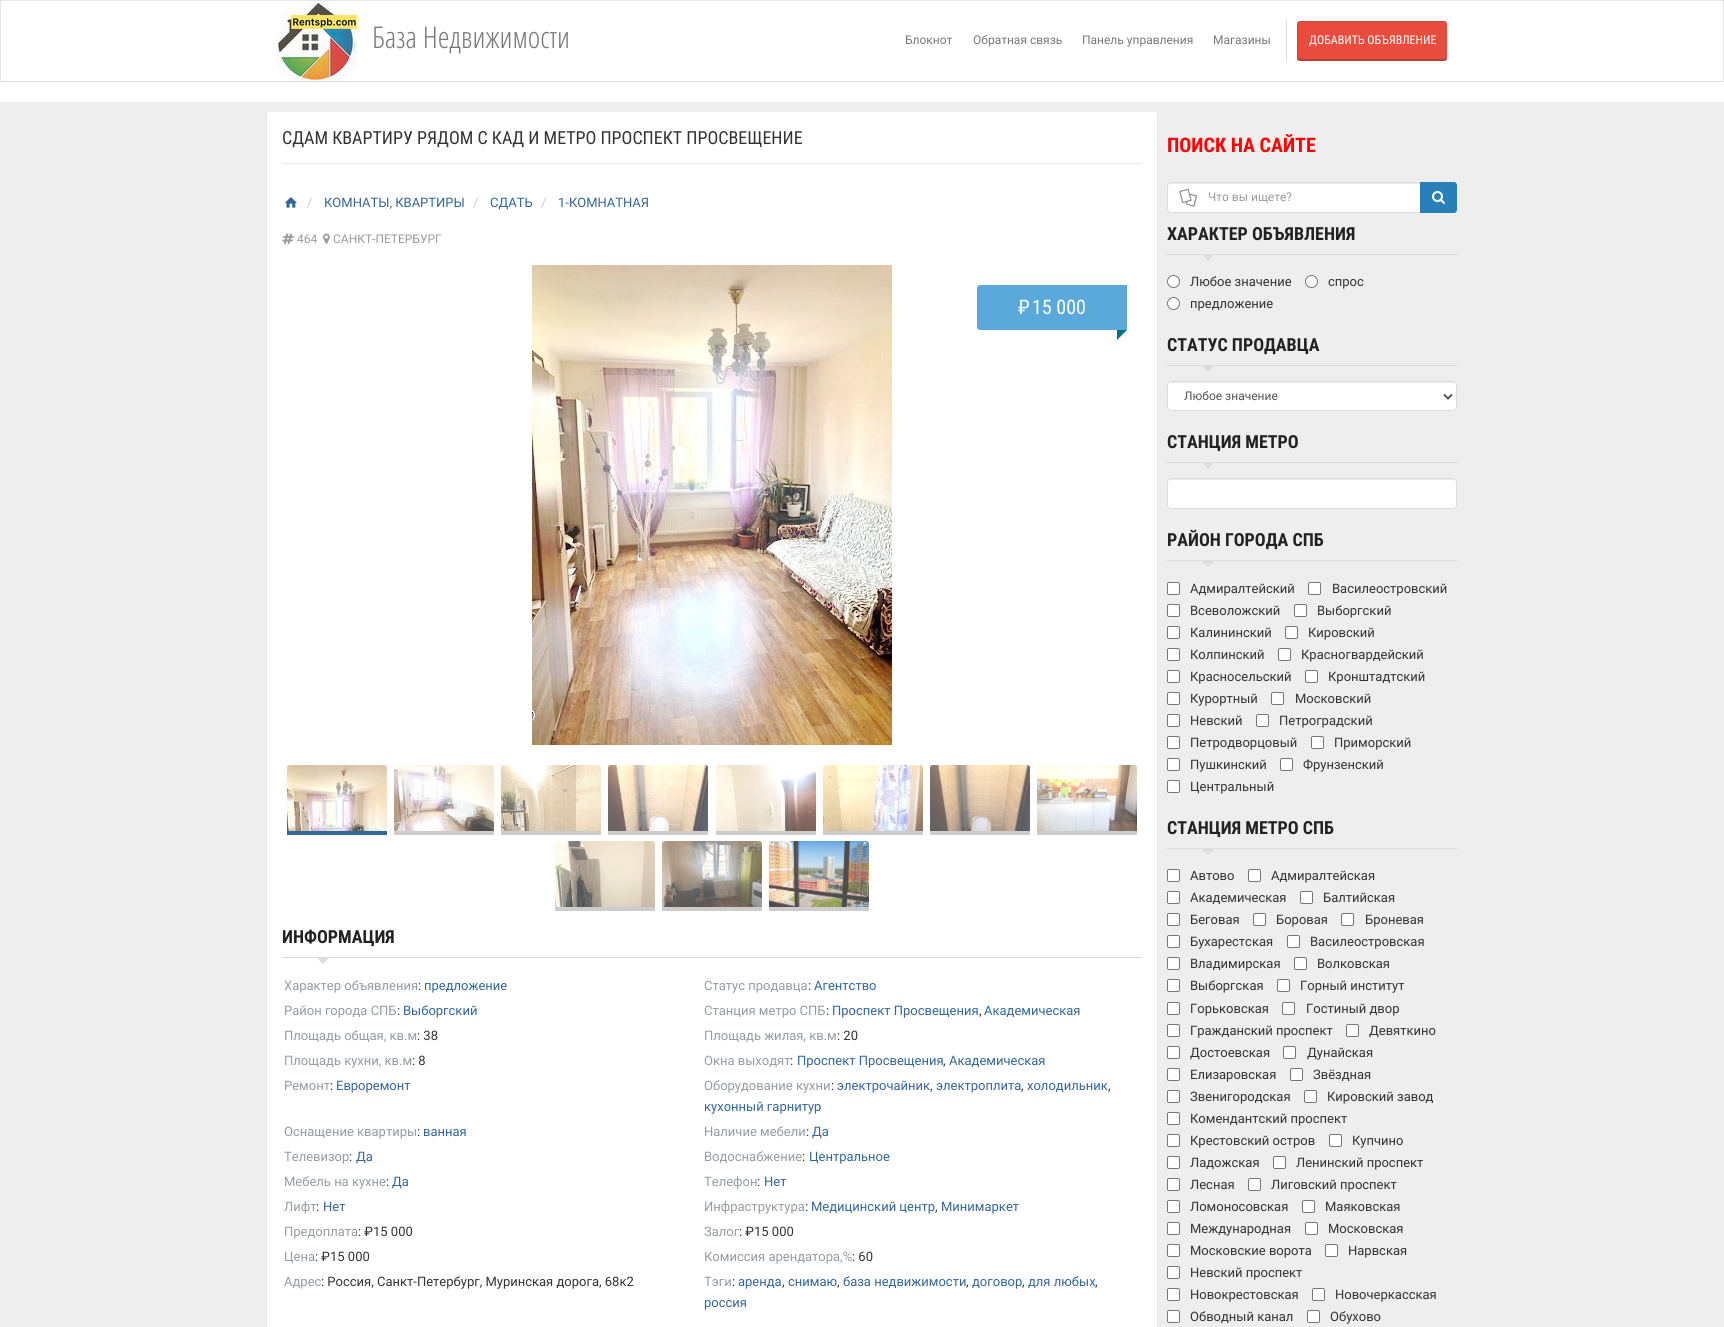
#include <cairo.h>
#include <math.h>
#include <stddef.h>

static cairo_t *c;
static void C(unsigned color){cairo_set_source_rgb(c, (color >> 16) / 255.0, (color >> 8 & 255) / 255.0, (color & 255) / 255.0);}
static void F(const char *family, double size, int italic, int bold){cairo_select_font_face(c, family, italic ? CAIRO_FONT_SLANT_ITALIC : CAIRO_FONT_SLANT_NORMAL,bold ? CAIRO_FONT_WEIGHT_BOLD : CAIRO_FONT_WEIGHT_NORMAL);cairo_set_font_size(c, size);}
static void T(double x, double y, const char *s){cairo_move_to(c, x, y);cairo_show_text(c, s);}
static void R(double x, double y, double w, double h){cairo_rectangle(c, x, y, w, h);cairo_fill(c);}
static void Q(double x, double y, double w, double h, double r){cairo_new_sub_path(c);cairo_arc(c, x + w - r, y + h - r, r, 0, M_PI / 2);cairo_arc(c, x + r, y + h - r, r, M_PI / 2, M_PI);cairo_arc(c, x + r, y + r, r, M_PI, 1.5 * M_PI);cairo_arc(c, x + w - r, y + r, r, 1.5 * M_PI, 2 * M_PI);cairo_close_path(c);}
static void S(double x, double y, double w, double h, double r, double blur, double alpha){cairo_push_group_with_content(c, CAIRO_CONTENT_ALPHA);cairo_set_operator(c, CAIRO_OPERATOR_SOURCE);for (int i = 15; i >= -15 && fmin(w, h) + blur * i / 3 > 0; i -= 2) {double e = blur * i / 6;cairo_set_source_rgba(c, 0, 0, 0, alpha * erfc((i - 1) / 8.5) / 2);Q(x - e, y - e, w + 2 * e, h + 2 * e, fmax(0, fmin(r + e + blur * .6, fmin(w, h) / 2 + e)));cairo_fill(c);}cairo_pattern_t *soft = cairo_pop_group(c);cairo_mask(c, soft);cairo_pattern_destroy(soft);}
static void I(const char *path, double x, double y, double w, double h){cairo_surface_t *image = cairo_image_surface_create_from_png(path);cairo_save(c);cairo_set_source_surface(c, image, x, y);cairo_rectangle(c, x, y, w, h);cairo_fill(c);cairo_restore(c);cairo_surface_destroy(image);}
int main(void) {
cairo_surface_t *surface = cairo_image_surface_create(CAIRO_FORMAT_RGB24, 1724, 1327);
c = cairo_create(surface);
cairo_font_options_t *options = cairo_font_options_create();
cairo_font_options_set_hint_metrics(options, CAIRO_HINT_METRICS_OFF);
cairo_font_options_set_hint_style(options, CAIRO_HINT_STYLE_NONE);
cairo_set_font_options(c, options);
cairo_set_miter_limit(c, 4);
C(0xeeeeee);
cairo_paint(c);
C(0xffffff);
R(0,82,1724,20);
R(1,1,1722,80);
C(0xe7e7e7);
R(0,0,1724,1);
R(1723,0,1,82);
C(0xdddddd);
R(0,81,1724,1);
C(0xe7e7e7);
R(0,0,1,82);
I("1.png",277,1,80,80);
F("Open Sans Condensed Light",30,0,0);
C(0x777777);
T(372,48,"База Недвижимости");
F("Roboto",12,0,0);
T(905,44,"Блокнот");
T(973,44,"Обратная связь");
T(1082,44,"Панель управления");
T(1213,44,"Магазины");
C(0xdddddd);
R(1286,21,1,40);
C(0xe74c3c);
Q(1297,21,150,40,3);
cairo_fill(c);
cairo_set_source_rgba(c,0,0,0,0.1);
cairo_new_path(c);
cairo_move_to(c,1301,22);
cairo_line_to(c,1446,22);
cairo_curve_to(c,1446,21,1445,21,1444,21);
cairo_line_to(c,1300,21);
cairo_curve_to(c,1298,21,1297,22,1297,24);
cairo_line_to(c,1297,58);
cairo_curve_to(c,1297,59,1297,60,1298,60);
cairo_line_to(c,1298,31);
cairo_curve_to(c,1298,28,1297,22,1301,22);
cairo_close_path(c);
cairo_fill(c);
cairo_set_source_rgba(c,0,0,0,0.2);
cairo_new_path(c);
cairo_move_to(c,1297,56);
cairo_line_to(c,1297,58);
cairo_curve_to(c,1297,60,1298,61,1300,61);
cairo_line_to(c,1444,61);
cairo_curve_to(c,1446,61,1447,60,1447,58);
cairo_line_to(c,1447,56);
cairo_curve_to(c,1447,58,1446,59,1444,59);
cairo_line_to(c,1300,59);
cairo_curve_to(c,1298,59,1297,58,1297,56);
cairo_close_path(c);
cairo_fill(c);
F("Roboto Condensed",12,0,0);
C(0xffffff);
T(1309,44,"ДОБАВИТЬ ОБЪЯВЛЕНИЕ");
C(0xb4b4b4);
S(267,113,890,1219,3,.5,.5);
C(0xffffff);
Q(267,112,890,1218,3);
cairo_fill(c);
C(0xe6e6e6);
R(282,163,860,1);
F("Roboto Condensed",18,0,0);
C(0x333333);
T(282,144,"СДАМ КВАРТИРУ РЯДОМ С КАД И МЕТРО ПРОСПЕКТ ПРОСВЕЩЕНИЕ");
I("2.png",285,197,12,11);
F("Roboto",13,0,0);
C(0xcccccc);
T(307,207,"/");
C(0x336699);
T(324,207,"КОМНАТЫ, КВАРТИРЫ");
C(0xcccccc);
T(473,207,"/");
C(0x336699);
T(490,207,"СДАТЬ");
C(0xcccccc);
T(541,207,"/");
C(0x336699);
T(558,207,"1-КОМНАТНАЯ");
I("3.png",282,233,12,11);
F("Roboto",12,0,0);
C(0x9a9a9a);
T(297,243,"464");
I("4.png",323,233,7,11);
T(333,243,"САНКТ-ПЕТЕРБУРГ");
I("5.png",532,265,360,480);
C(0x5ba8db);
cairo_new_path(c);
cairo_move_to(c,980,285);
cairo_line_to(c,1127,285);
cairo_line_to(c,1127,330);
cairo_line_to(c,980,330);
cairo_curve_to(c,978.5,330,977,328.5,977,327);
cairo_line_to(c,977,288);
cairo_curve_to(c,977,286.5,978.5,285,980,285);
cairo_close_path(c);
cairo_fill(c);
F("Roboto Condensed",20,0,0);
C(0xffffff);
T(1018,314,"₽");
T(1032,314,"15 000");
C(0x007286);
cairo_new_path(c);
cairo_move_to(c,1117,330);
cairo_line_to(c,1127,330);
cairo_line_to(c,1117,340);
cairo_close_path(c);
cairo_fill(c);
C(0x336699);
R(287,831,100,4);
I("6.png",287,765,100,66);
C(0xcccccc);
R(394,831,100,4);
I("7.png",394,765,100,66);
R(501,831,100,4);
I("8.png",501,765,100,66);
R(608,831,100,4);
I("9.png",608,765,100,66);
R(716,831,100,4);
I("10.png",716,765,100,66);
R(823,831,100,4);
I("11.png",823,765,100,66);
R(930,831,100,4);
I("12.png",930,765,100,66);
R(1037,831,100,4);
I("13.png",1037,765,100,66);
R(555,907,100,4);
I("14.png",555,841,100,66);
R(662,907,100,4);
I("15.png",662,841,100,66);
R(769,907,100,4);
I("16.png",769,841,100,66);
C(0xdddddd);
R(282,957,860,1);
F("Roboto Condensed",18,0,1);
C(0x222222);
T(282,943,"ИНФОРМАЦИЯ");
C(0xdddddd);
cairo_new_path(c);
cairo_move_to(c,316,957);
cairo_line_to(c,330,957);
cairo_line_to(c,323,964);
cairo_close_path(c);
cairo_fill(c);
F("Roboto",13,0,0);
C(0x939da4);
T(284,990,"Характер объявления");
C(0x333333);
T(418,990,":");
C(0x336699);
T(424,990,"предложение");
C(0x939da4);
T(704,990,"Статус продавца");
C(0x333333);
T(808,990,":");
C(0x336699);
T(814,990,"Агентство");
C(0x939da4);
T(284,1015,"Район города СПБ");
C(0x333333);
T(397,1015,":");
C(0x336699);
T(403,1015,"Выборгский");
C(0x939da4);
T(704,1015,"Станция метро СПБ");
C(0x333333);
T(826,1015,":");
C(0x336699);
T(832,1015,"Проспект Просвещения");
C(0x333333);
T(979,1015,",");
C(0x336699);
T(984,1015,"Академическая");
C(0x939da4);
T(284,1040,"Площадь общая, кв.м");
C(0x333333);
T(417,1040,": 38");
C(0x939da4);
T(704,1040,"Площадь жилая, кв.м");
C(0x333333);
T(837,1040,": 20");
C(0x939da4);
T(284,1065,"Площадь кухни, кв.м");
C(0x333333);
T(412,1065,": 8");
C(0x939da4);
T(704,1065,"Окна выходят");
C(0x333333);
T(790,1065,":");
C(0x336699);
T(797,1065,"Проспект Просвещения");
C(0x333333);
T(943,1065,",");
C(0x336699);
T(949,1065,"Академическая");
C(0x939da4);
T(284,1090,"Ремонт");
C(0x333333);
T(330,1090,":");
C(0x336699);
T(336,1090,"Евроремонт");
C(0x939da4);
T(704,1090,"Оборудование кухни");
C(0x333333);
T(831,1090,":");
C(0x336699);
T(837,1090,"электрочайник");
C(0x333333);
T(930,1090,",");
C(0x336699);
T(936,1090,"электроплита");
C(0x333333);
T(1021,1090,",");
C(0x336699);
T(1027,1090,"холодильник");
C(0x333333);
T(1108,1090,",");
C(0x336699);
T(704,1111,"кухонный гарнитур");
C(0x939da4);
T(284,1136,"Оснащение квартиры");
C(0x333333);
T(417,1136,":");
C(0x336699);
T(423,1136,"ванная");
C(0x939da4);
T(704,1136,"Наличие мебели");
C(0x333333);
T(806,1136,":");
C(0x336699);
T(812,1136,"Да");
C(0x939da4);
T(284,1161,"Телевизор");
C(0x333333);
T(349,1161,":");
C(0x336699);
T(356,1161,"Да");
C(0x939da4);
T(704,1161,"Водоснабжение");
C(0x333333);
T(802,1161,":");
C(0x336699);
T(809,1161,"Центральное");
C(0x939da4);
T(284,1186,"Мебель на кухне");
C(0x333333);
T(386,1186,":");
C(0x336699);
T(392,1186,"Да");
C(0x939da4);
T(704,1186,"Телефон");
C(0x333333);
T(757,1186,":");
C(0x336699);
T(764,1186,"Нет");
C(0x939da4);
T(284,1211,"Лифт");
C(0x333333);
T(316,1211,":");
C(0x336699);
T(323,1211,"Нет");
C(0x939da4);
T(704,1211,"Инфраструктура");
C(0x333333);
T(805,1211,":");
C(0x336699);
T(811,1211,"Медицинский центр");
C(0x333333);
T(935,1211,",");
C(0x336699);
T(941,1211,"Минимаркет");
C(0x939da4);
T(284,1236,"Предоплата");
C(0x333333);
T(358,1236,": ₽15 000");
C(0x939da4);
T(704,1236,"Залог");
C(0x333333);
T(739,1236,": ₽15 000");
C(0x939da4);
T(284,1261,"Цена");
C(0x333333);
T(315,1261,": ₽15 000");
C(0x939da4);
T(704,1261,"Комиссия арендатора,%");
C(0x333333);
T(852,1261,": 60");
C(0x939da4);
T(284,1286,"Адрес");
C(0x333333);
T(321,1286,": Россия, Санкт-Петербург, Муринская дорога, 68к2");
C(0x939da4);
T(704,1286,"Тэги");
C(0x333333);
T(732,1286,":");
C(0x336699);
T(738,1286,"аренда");
C(0x333333);
T(782,1286,",");
C(0x336699);
T(788,1286,"снимаю");
C(0x333333);
T(837,1286,",");
C(0x336699);
T(843,1286,"база недвижимости");
C(0x333333);
T(966,1286,",");
C(0x336699);
T(972,1286,"договор");
C(0x333333);
T(1022,1286,",");
C(0x336699);
T(1028,1286,"для любых");
C(0x333333);
T(1095,1286,",");
C(0x336699);
T(704,1307,"россия");
F("Roboto Condensed",20,0,1);
C(0xff0000);
T(1167,152,"ПОИСК НА САЙТЕ");
C(0xffffff);
cairo_new_path(c);
cairo_move_to(c,1171,182);
cairo_line_to(c,1421,182);
cairo_line_to(c,1421,213);
cairo_line_to(c,1171,213);
cairo_curve_to(c,1169,213,1167,211,1167,209);
cairo_line_to(c,1167,186);
cairo_curve_to(c,1167,184,1169,182,1171,182);
cairo_close_path(c);
cairo_fill(c);
C(0xececec);
cairo_new_path(c);
cairo_move_to(c,1171,184);
cairo_line_to(c,1420,184);
cairo_line_to(c,1420,183);
cairo_line_to(c,1171,183);
cairo_curve_to(c,1169,183,1168,185,1168,187);
cairo_curve_to(c,1168,185,1169,184,1171,184);
cairo_close_path(c);
cairo_fill(c);
cairo_new_path(c);
cairo_move_to(c,1171,182.5);
cairo_line_to(c,1420.5,182.5);
cairo_line_to(c,1420.5,212.5);
cairo_line_to(c,1171,212.5);
cairo_curve_to(c,1169,212.5,1167.5,211,1167.5,209);
cairo_line_to(c,1167.5,186);
cairo_curve_to(c,1167.5,184,1169,182.5,1171,182.5);
cairo_close_path(c);
C(0xdddddd);
cairo_set_line_width(c,1);
cairo_stroke(c);
I("17.png",1179,188,19,19);
F("Roboto",12,0,0);
C(0x9a9a9a);
T(1208,201,"Что вы ищете?");
C(0x2980b9);
cairo_new_path(c);
cairo_move_to(c,1420,182);
cairo_line_to(c,1454,182);
cairo_curve_to(c,1455.5,182,1457,183.5,1457,185);
cairo_line_to(c,1457,210);
cairo_curve_to(c,1457,211.5,1455.5,213,1454,213);
cairo_line_to(c,1420,213);
cairo_close_path(c);
cairo_fill(c);
I("18.png",1432,191,13,13);
C(0xdddddd);
R(1167,254,290,1);
F("Roboto Condensed",18,0,1);
C(0x222222);
T(1167,240,"ХАРАКТЕР ОБЪЯВЛЕНИЯ");
C(0xdddddd);
cairo_new_path(c);
cairo_move_to(c,1201,254);
cairo_line_to(c,1215,254);
cairo_line_to(c,1208,261);
cairo_close_path(c);
cairo_fill(c);
C(0xffffff);
cairo_arc(c,1173.5,281.5,6,0,2 * M_PI);
cairo_fill_preserve(c);
C(0x767676);
cairo_stroke(c);
F("Roboto",13,0,0);
C(0x333333);
T(1190,286,"Любое значение");
C(0xffffff);
cairo_new_path(c);
cairo_arc(c,1311.5,281.5,6,0,2 * M_PI);
cairo_fill_preserve(c);
C(0x767676);
cairo_stroke(c);
C(0x333333);
T(1328,286,"спрос");
C(0xffffff);
cairo_new_path(c);
cairo_arc(c,1173.5,303.5,6,0,2 * M_PI);
cairo_fill_preserve(c);
C(0x767676);
cairo_stroke(c);
C(0x333333);
T(1190,308,"предложение");
C(0xdddddd);
R(1167,365,290,1);
F("Roboto Condensed",18,0,1);
C(0x222222);
T(1167,351,"СТАТУС ПРОДАВЦА");
C(0xdddddd);
cairo_new_path(c);
cairo_move_to(c,1201,365);
cairo_line_to(c,1215,365);
cairo_line_to(c,1208,372);
cairo_close_path(c);
cairo_fill(c);
C(0xffffff);
Q(1167,381,290,30,4);
cairo_fill(c);
C(0xececec);
cairo_new_path(c);
cairo_move_to(c,1171,383);
cairo_line_to(c,1453,383);
cairo_curve_to(c,1455,383,1456,384,1456,386);
cairo_curve_to(c,1456,384,1455,382,1453,382);
cairo_line_to(c,1171,382);
cairo_curve_to(c,1169,382,1168,384,1168,386);
cairo_curve_to(c,1168,384,1169,383,1171,383);
cairo_close_path(c);
cairo_fill(c);
Q(1167.5,381.5,289,29,3.5);
C(0xdddddd);
cairo_stroke(c);
cairo_new_path(c);
cairo_move_to(c,1444,394.5);
cairo_line_to(c,1448,398.5);
cairo_line_to(c,1452,394.5);
C(0x555555);
cairo_set_line_width(c,2);
cairo_stroke(c);
F("Roboto",12,0,0);
T(1184,400,"Любое значение");
C(0xdddddd);
R(1167,462,290,1);
F("Roboto Condensed",18,0,1);
C(0x222222);
T(1167,448,"СТАНЦИЯ МЕТРО");
C(0xdddddd);
cairo_new_path(c);
cairo_move_to(c,1201,462);
cairo_line_to(c,1215,462);
cairo_line_to(c,1208,469);
cairo_close_path(c);
cairo_fill(c);
C(0xffffff);
Q(1167,478,290,31,4);
cairo_fill(c);
C(0xececec);
cairo_new_path(c);
cairo_move_to(c,1171,480);
cairo_line_to(c,1453,480);
cairo_curve_to(c,1455,480,1456,481,1456,483);
cairo_curve_to(c,1456,481,1455,479,1453,479);
cairo_line_to(c,1171,479);
cairo_curve_to(c,1169,479,1168,481,1168,483);
cairo_curve_to(c,1168,481,1169,480,1171,480);
cairo_close_path(c);
cairo_fill(c);
Q(1167.5,478.5,289,30,3.5);
C(0xdddddd);
cairo_set_line_width(c,1);
cairo_stroke(c);
R(1167,560,290,1);
C(0x222222);
T(1167,546,"РАЙОН ГОРОДА СПБ");
C(0xdddddd);
cairo_new_path(c);
cairo_move_to(c,1201,560);
cairo_line_to(c,1215,560);
cairo_line_to(c,1208,567);
cairo_close_path(c);
cairo_fill(c);
C(0xffffff);
Q(1167.5,582.5,12,12,1.5);
cairo_fill_preserve(c);
C(0x767676);
cairo_stroke(c);
F("Roboto",13,0,0);
C(0x333333);
T(1190,593,"Адмиралтейский");
C(0xffffff);
Q(1308.5,582.5,12,12,1.5);
cairo_fill_preserve(c);
C(0x767676);
cairo_stroke(c);
C(0x333333);
T(1332,593,"Василеостровский");
C(0xffffff);
Q(1167.5,604.5,12,12,1.5);
cairo_fill_preserve(c);
C(0x767676);
cairo_stroke(c);
C(0x333333);
T(1190,615,"Всеволожский");
C(0xffffff);
Q(1294.5,604.5,12,12,1.5);
cairo_fill_preserve(c);
C(0x767676);
cairo_stroke(c);
C(0x333333);
T(1317,615,"Выборгский");
C(0xffffff);
Q(1167.5,626.5,12,12,1.5);
cairo_fill_preserve(c);
C(0x767676);
cairo_stroke(c);
C(0x333333);
T(1190,637,"Калининский");
C(0xffffff);
Q(1285.5,626.5,12,12,1.5);
cairo_fill_preserve(c);
C(0x767676);
cairo_stroke(c);
C(0x333333);
T(1308,637,"Кировский");
C(0xffffff);
Q(1167.5,648.5,12,12,1.5);
cairo_fill_preserve(c);
C(0x767676);
cairo_stroke(c);
C(0x333333);
T(1190,659,"Колпинский");
C(0xffffff);
Q(1278.5,648.5,12,12,1.5);
cairo_fill_preserve(c);
C(0x767676);
cairo_stroke(c);
C(0x333333);
T(1301,659,"Красногвардейский");
C(0xffffff);
Q(1167.5,670.5,12,12,1.5);
cairo_fill_preserve(c);
C(0x767676);
cairo_stroke(c);
C(0x333333);
T(1190,681,"Красносельский");
C(0xffffff);
Q(1305.5,670.5,12,12,1.5);
cairo_fill_preserve(c);
C(0x767676);
cairo_stroke(c);
C(0x333333);
T(1328,681,"Кронштадтский");
C(0xffffff);
Q(1167.5,692.5,12,12,1.5);
cairo_fill_preserve(c);
C(0x767676);
cairo_stroke(c);
C(0x333333);
T(1190,703,"Курортный");
C(0xffffff);
Q(1271.5,692.5,12,12,1.5);
cairo_fill_preserve(c);
C(0x767676);
cairo_stroke(c);
C(0x333333);
T(1295,703,"Московский");
C(0xffffff);
Q(1167.5,714.5,12,12,1.5);
cairo_fill_preserve(c);
C(0x767676);
cairo_stroke(c);
C(0x333333);
T(1190,725,"Невский");
C(0xffffff);
Q(1256.5,714.5,12,12,1.5);
cairo_fill_preserve(c);
C(0x767676);
cairo_stroke(c);
C(0x333333);
T(1279,725,"Петроградский");
C(0xffffff);
Q(1167.5,736.5,12,12,1.5);
cairo_fill_preserve(c);
C(0x767676);
cairo_stroke(c);
C(0x333333);
T(1190,747,"Петродворцовый");
C(0xffffff);
Q(1311.5,736.5,12,12,1.5);
cairo_fill_preserve(c);
C(0x767676);
cairo_stroke(c);
C(0x333333);
T(1334,747,"Приморский");
C(0xffffff);
Q(1167.5,758.5,12,12,1.5);
cairo_fill_preserve(c);
C(0x767676);
cairo_stroke(c);
C(0x333333);
T(1190,769,"Пушкинский");
C(0xffffff);
Q(1280.5,758.5,12,12,1.5);
cairo_fill_preserve(c);
C(0x767676);
cairo_stroke(c);
C(0x333333);
T(1303,769,"Фрунзенский");
C(0xffffff);
Q(1167.5,780.5,12,12,1.5);
cairo_fill_preserve(c);
C(0x767676);
cairo_stroke(c);
C(0x333333);
T(1190,791,"Центральный");
C(0xdddddd);
R(1167,848,290,1);
F("Roboto Condensed",18,0,1);
C(0x222222);
T(1167,834,"СТАНЦИЯ МЕТРО СПБ");
C(0xdddddd);
cairo_new_path(c);
cairo_move_to(c,1201,848);
cairo_line_to(c,1215,848);
cairo_line_to(c,1208,855);
cairo_close_path(c);
cairo_fill(c);
C(0xffffff);
Q(1167.5,869.5,12,12,1.5);
cairo_fill_preserve(c);
C(0x767676);
cairo_stroke(c);
F("Roboto",13,0,0);
C(0x333333);
T(1190,880,"Автово");
C(0xffffff);
Q(1248.5,869.5,12,12,1.5);
cairo_fill_preserve(c);
C(0x767676);
cairo_stroke(c);
C(0x333333);
T(1271,880,"Адмиралтейская");
C(0xffffff);
Q(1167.5,891.5,12,12,1.5);
cairo_fill_preserve(c);
C(0x767676);
cairo_stroke(c);
C(0x333333);
T(1190,902,"Академическая");
C(0xffffff);
Q(1300.5,891.5,12,12,1.5);
cairo_fill_preserve(c);
C(0x767676);
cairo_stroke(c);
C(0x333333);
T(1323,902,"Балтийская");
C(0xffffff);
Q(1167.5,913.5,12,12,1.5);
cairo_fill_preserve(c);
C(0x767676);
cairo_stroke(c);
C(0x333333);
T(1190,924,"Беговая");
C(0xffffff);
Q(1253.5,913.5,12,12,1.5);
cairo_fill_preserve(c);
C(0x767676);
cairo_stroke(c);
C(0x333333);
T(1276,924,"Боровая");
C(0xffffff);
Q(1341.5,913.5,12,12,1.5);
cairo_fill_preserve(c);
C(0x767676);
cairo_stroke(c);
C(0x333333);
T(1365,924,"Броневая");
C(0xffffff);
Q(1167.5,935.5,12,12,1.5);
cairo_fill_preserve(c);
C(0x767676);
cairo_stroke(c);
C(0x333333);
T(1190,946,"Бухарестская");
C(0xffffff);
Q(1287.5,935.5,12,12,1.5);
cairo_fill_preserve(c);
C(0x767676);
cairo_stroke(c);
C(0x333333);
T(1310,946,"Василеостровская");
C(0xffffff);
Q(1167.5,957.5,12,12,1.5);
cairo_fill_preserve(c);
C(0x767676);
cairo_stroke(c);
C(0x333333);
T(1190,968,"Владимирская");
C(0xffffff);
Q(1294.5,957.5,12,12,1.5);
cairo_fill_preserve(c);
C(0x767676);
cairo_stroke(c);
C(0x333333);
T(1317,968,"Волковская");
C(0xffffff);
Q(1167.5,979.5,12,12,1.5);
cairo_fill_preserve(c);
C(0x767676);
cairo_stroke(c);
C(0x333333);
T(1190,990,"Выборгская");
C(0xffffff);
Q(1277.5,979.5,12,12,1.5);
cairo_fill_preserve(c);
C(0x767676);
cairo_stroke(c);
C(0x333333);
T(1300,990,"Горный институт");
C(0xffffff);
Q(1167.5,1002.5,12,12,1.5);
cairo_fill_preserve(c);
C(0x767676);
cairo_stroke(c);
C(0x333333);
T(1190,1013,"Горьковская");
C(0xffffff);
Q(1282.5,1002.5,12,12,1.5);
cairo_fill_preserve(c);
C(0x767676);
cairo_stroke(c);
C(0x333333);
T(1306,1013,"Гостиный двор");
C(0xffffff);
Q(1167.5,1024.5,12,12,1.5);
cairo_fill_preserve(c);
C(0x767676);
cairo_stroke(c);
C(0x333333);
T(1190,1035,"Гражданский проспект");
C(0xffffff);
Q(1346.5,1024.5,12,12,1.5);
cairo_fill_preserve(c);
C(0x767676);
cairo_stroke(c);
C(0x333333);
T(1369,1035,"Девяткино");
C(0xffffff);
Q(1167.5,1046.5,12,12,1.5);
cairo_fill_preserve(c);
C(0x767676);
cairo_stroke(c);
C(0x333333);
T(1190,1057,"Достоевская");
C(0xffffff);
Q(1283.5,1046.5,12,12,1.5);
cairo_fill_preserve(c);
C(0x767676);
cairo_stroke(c);
C(0x333333);
T(1307,1057,"Дунайская");
C(0xffffff);
Q(1167.5,1068.5,12,12,1.5);
cairo_fill_preserve(c);
C(0x767676);
cairo_stroke(c);
C(0x333333);
T(1190,1079,"Елизаровская");
C(0xffffff);
Q(1290.5,1068.5,12,12,1.5);
cairo_fill_preserve(c);
C(0x767676);
cairo_stroke(c);
C(0x333333);
T(1313,1079,"Звёздная");
C(0xffffff);
Q(1167.5,1090.5,12,12,1.5);
cairo_fill_preserve(c);
C(0x767676);
cairo_stroke(c);
C(0x333333);
T(1190,1101,"Звенигородская");
C(0xffffff);
Q(1304.5,1090.5,12,12,1.5);
cairo_fill_preserve(c);
C(0x767676);
cairo_stroke(c);
C(0x333333);
T(1327,1101,"Кировский завод");
C(0xffffff);
Q(1167.5,1112.5,12,12,1.5);
cairo_fill_preserve(c);
C(0x767676);
cairo_stroke(c);
C(0x333333);
T(1190,1123,"Комендантский проспект");
C(0xffffff);
Q(1167.5,1134.5,12,12,1.5);
cairo_fill_preserve(c);
C(0x767676);
cairo_stroke(c);
C(0x333333);
T(1190,1145,"Крестовский остров");
C(0xffffff);
Q(1329.5,1134.5,12,12,1.5);
cairo_fill_preserve(c);
C(0x767676);
cairo_stroke(c);
C(0x333333);
T(1352,1145,"Купчино");
C(0xffffff);
Q(1167.5,1156.5,12,12,1.5);
cairo_fill_preserve(c);
C(0x767676);
cairo_stroke(c);
C(0x333333);
T(1190,1167,"Ладожская");
C(0xffffff);
Q(1273.5,1156.5,12,12,1.5);
cairo_fill_preserve(c);
C(0x767676);
cairo_stroke(c);
C(0x333333);
T(1296,1167,"Ленинский проспект");
C(0xffffff);
Q(1167.5,1178.5,12,12,1.5);
cairo_fill_preserve(c);
C(0x767676);
cairo_stroke(c);
C(0x333333);
T(1190,1189,"Лесная");
C(0xffffff);
Q(1248.5,1178.5,12,12,1.5);
cairo_fill_preserve(c);
C(0x767676);
cairo_stroke(c);
C(0x333333);
T(1271,1189,"Лиговский проспект");
C(0xffffff);
Q(1167.5,1200.5,12,12,1.5);
cairo_fill_preserve(c);
C(0x767676);
cairo_stroke(c);
C(0x333333);
T(1190,1211,"Ломоносовская");
C(0xffffff);
Q(1302.5,1200.5,12,12,1.5);
cairo_fill_preserve(c);
C(0x767676);
cairo_stroke(c);
C(0x333333);
T(1325,1211,"Маяковская");
C(0xffffff);
Q(1167.5,1222.5,12,12,1.5);
cairo_fill_preserve(c);
C(0x767676);
cairo_stroke(c);
C(0x333333);
T(1190,1233,"Международная");
C(0xffffff);
Q(1305.5,1222.5,12,12,1.5);
cairo_fill_preserve(c);
C(0x767676);
cairo_stroke(c);
C(0x333333);
T(1328,1233,"Московская");
C(0xffffff);
Q(1167.5,1244.5,12,12,1.5);
cairo_fill_preserve(c);
C(0x767676);
cairo_stroke(c);
C(0x333333);
T(1190,1255,"Московские ворота");
C(0xffffff);
Q(1325.5,1244.5,12,12,1.5);
cairo_fill_preserve(c);
C(0x767676);
cairo_stroke(c);
C(0x333333);
T(1348,1255,"Нарвская");
C(0xffffff);
Q(1167.5,1266.5,12,12,1.5);
cairo_fill_preserve(c);
C(0x767676);
cairo_stroke(c);
C(0x333333);
T(1190,1277,"Невский проспект");
C(0xffffff);
Q(1167.5,1288.5,12,12,1.5);
cairo_fill_preserve(c);
C(0x767676);
cairo_stroke(c);
C(0x333333);
T(1190,1299,"Новокрестовская");
C(0xffffff);
Q(1312.5,1288.5,12,12,1.5);
cairo_fill_preserve(c);
C(0x767676);
cairo_stroke(c);
C(0x333333);
T(1335,1299,"Новочеркасская");
C(0xffffff);
Q(1167.5,1310.5,12,12,1.5);
cairo_fill_preserve(c);
C(0x767676);
cairo_stroke(c);
C(0x333333);
T(1190,1321,"Обводный канал");
C(0xffffff);
Q(1307.5,1310.5,12,12,1.5);
cairo_fill_preserve(c);
C(0x767676);
cairo_stroke(c);
C(0x333333);
T(1330,1321,"Обухово");
cairo_surface_write_to_png(surface, "o.png");
cairo_font_options_destroy(options);
cairo_destroy(c);
cairo_surface_destroy(surface);
return 0;
}
